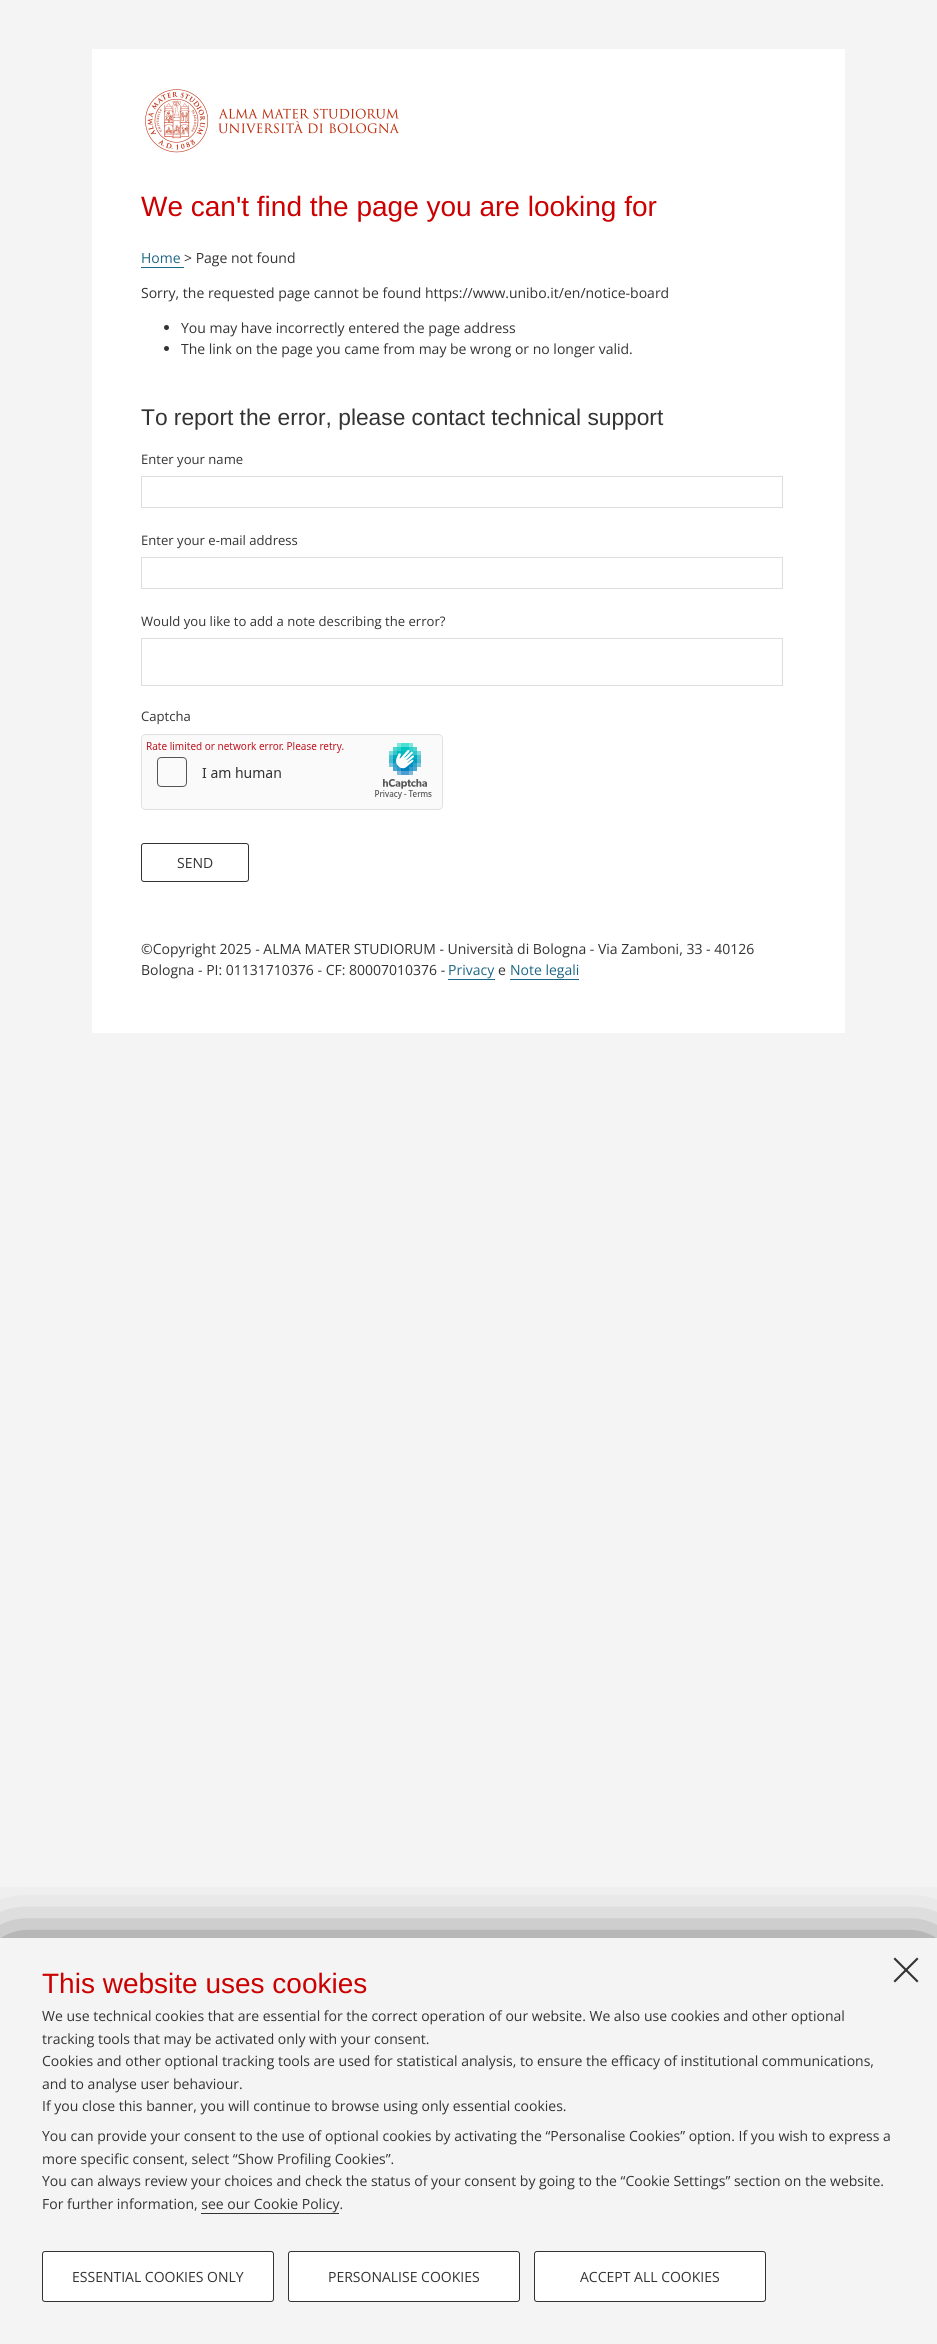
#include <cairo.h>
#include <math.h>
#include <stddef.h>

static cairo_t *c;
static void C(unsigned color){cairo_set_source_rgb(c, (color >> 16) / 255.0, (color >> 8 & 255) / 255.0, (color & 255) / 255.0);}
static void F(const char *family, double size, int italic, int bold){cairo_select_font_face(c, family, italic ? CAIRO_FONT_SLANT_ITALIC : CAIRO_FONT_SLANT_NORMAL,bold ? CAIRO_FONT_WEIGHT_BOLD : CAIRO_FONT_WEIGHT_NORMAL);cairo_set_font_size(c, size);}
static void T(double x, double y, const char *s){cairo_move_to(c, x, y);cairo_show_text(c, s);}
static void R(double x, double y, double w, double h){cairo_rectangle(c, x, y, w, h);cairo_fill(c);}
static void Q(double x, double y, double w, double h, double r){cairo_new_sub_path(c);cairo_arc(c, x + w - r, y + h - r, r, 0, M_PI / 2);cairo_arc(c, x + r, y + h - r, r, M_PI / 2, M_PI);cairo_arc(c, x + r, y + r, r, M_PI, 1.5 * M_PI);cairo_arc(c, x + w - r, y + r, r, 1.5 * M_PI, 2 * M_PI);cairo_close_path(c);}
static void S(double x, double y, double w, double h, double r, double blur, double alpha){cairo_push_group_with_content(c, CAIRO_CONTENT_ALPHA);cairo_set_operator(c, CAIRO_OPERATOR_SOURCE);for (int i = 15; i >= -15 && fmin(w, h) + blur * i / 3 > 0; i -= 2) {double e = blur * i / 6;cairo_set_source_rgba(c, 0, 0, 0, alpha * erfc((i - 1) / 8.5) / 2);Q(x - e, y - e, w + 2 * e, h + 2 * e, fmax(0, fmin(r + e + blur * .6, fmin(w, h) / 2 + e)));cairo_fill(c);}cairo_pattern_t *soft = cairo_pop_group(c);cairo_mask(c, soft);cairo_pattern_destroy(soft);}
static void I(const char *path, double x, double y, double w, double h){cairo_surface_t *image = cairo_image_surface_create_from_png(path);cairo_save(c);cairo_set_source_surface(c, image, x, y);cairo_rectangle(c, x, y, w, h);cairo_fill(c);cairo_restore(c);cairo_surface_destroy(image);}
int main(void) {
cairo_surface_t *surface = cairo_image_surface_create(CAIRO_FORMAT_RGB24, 937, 2344);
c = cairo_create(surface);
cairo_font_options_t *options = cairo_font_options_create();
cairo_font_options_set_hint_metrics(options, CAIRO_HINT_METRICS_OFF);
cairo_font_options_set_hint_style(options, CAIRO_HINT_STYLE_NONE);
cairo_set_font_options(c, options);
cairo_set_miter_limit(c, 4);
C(0xf4f4f4);
cairo_paint(c);
C(0xffffff);
R(92,49,753,984);
I("1.png",145,89,254,64);
F("Liberation Sans",28,0,0);
C(0xcc0000);
T(141,216,"We can't find the page you are looking for");
F("Open Sans",14,0,0);
C(0x1d6684);
T(141,263,"Home");
R(141,267,43,1);
C(0x333333);
T(184,263,"> Page not found");
T(141,298,"Sorry, the requested page cannot be found https://www.unibo.it/en/notice-board");
cairo_new_path(c);
cairo_arc(c,166.5,327.5,2.5,0,2 * M_PI);
cairo_fill(c);
T(181,333,"You may have incorrectly entered the page address");
cairo_new_path(c);
cairo_arc(c,166.5,348.5,2.5,0,2 * M_PI);
cairo_fill(c);
T(181,354,"The link on the page you came from may be wrong or no longer valid.");
F("Liberation Sans",22.75,0,0);
T(141,425,"To report the error, please contact technical support");
F("Open Sans",13.1,0,0);
T(141,464,"Enter your name");
cairo_rectangle(c,141.5,476.5,641,31);
C(0xdddddd);
cairo_set_line_width(c,1);
cairo_stroke(c);
C(0x333333);
T(141,545,"Enter your e-mail address");
cairo_rectangle(c,141.5,557.5,641,31);
C(0xdddddd);
cairo_stroke(c);
C(0x333333);
T(141,626,"Would you like to add a note describing the error?");
cairo_rectangle(c,141.5,638.5,641,47);
C(0xdddddd);
cairo_stroke(c);
C(0x333333);
T(141,721,"Captcha");
I("2.png",141,734,302,76);
Q(141.5,843.5,107,38,2.5);
cairo_stroke(c);
F("Open Sans",14,0,0);
T(177,868,"SEND");
T(141,954,"©Copyright 2025 - ALMA MATER STUDIORUM - Università di Bologna - Via Zamboni, 33 - 40126");
T(141,975,"Bologna - PI: 01131710376 - CF: 80007010376 -");
C(0x1d6684);
T(448,975,"Privacy");
R(448,979,47,1);
C(0x333333);
T(498,975,"e");
C(0x1d6684);
T(510,975,"Note legali");
R(510,979,69,1);
cairo_save(c);
cairo_rectangle(c,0,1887,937,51);
cairo_clip(c);
C(0x000000);
S(7,1959,923,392,0,35,1);
cairo_restore(c);
F("Liberation Sans",28,0,0);
C(0xcc0000);
T(42,1993,"This website uses cookies");
F("Open Sans",14,0,0);
C(0x333333);
T(42,2021,"We use technical cookies that are essential for the correct operation of our website. We also use cookies and other optional");
T(42,2044,"tracking tools that may be activated only with your consent.");
T(42,2066,"Cookies and other optional tracking tools are used for statistical analysis, to ensure the efficacy of institutional communications,");
T(42,2089,"and to analyse user behaviour.");
T(42,2111,"If you close this banner, you will continue to browse using only essential cookies.");
T(42,2141,"You can provide your consent to the use of optional cookies by activating the “Personalise Cookies” option. If you wish to express a");
T(42,2164,"more specific consent, select “Show Profiling Cookies”.");
T(42,2186,"You can always review your choices and check the status of your consent by going to the “Cookie Settings” section on the website.");
T(42,2209,"For further information, see our Cookie Policy.");
R(201,2213,138,1);
cairo_new_path(c);
cairo_move_to(c,917,1957.5);
cairo_line_to(c,918.5,1959);
cairo_line_to(c,895,1982.5);
cairo_line_to(c,893.5,1981);
cairo_close_path(c);
cairo_fill(c);
cairo_new_path(c);
cairo_move_to(c,893.5,1959);
cairo_line_to(c,895,1957.5);
cairo_line_to(c,918.5,1981);
cairo_line_to(c,917,1982.5);
cairo_close_path(c);
cairo_fill(c);
C(0xffffff);
Q(42.5,2251.5,231,50,2.5);
cairo_fill_preserve(c);
C(0x333333);
cairo_stroke(c);
T(72,2282,"ESSENTIAL COOKIES ONLY");
C(0xffffff);
Q(288.5,2251.5,231,50,2.5);
cairo_fill_preserve(c);
C(0x333333);
cairo_stroke(c);
T(328,2282,"PERSONALISE COOKIES");
C(0xffffff);
Q(534.5,2251.5,231,50,2.5);
cairo_fill_preserve(c);
C(0x333333);
cairo_stroke(c);
T(580,2282,"ACCEPT ALL COOKIES");
cairo_surface_write_to_png(surface, "o.png");
cairo_font_options_destroy(options);
cairo_destroy(c);
cairo_surface_destroy(surface);
return 0;
}
